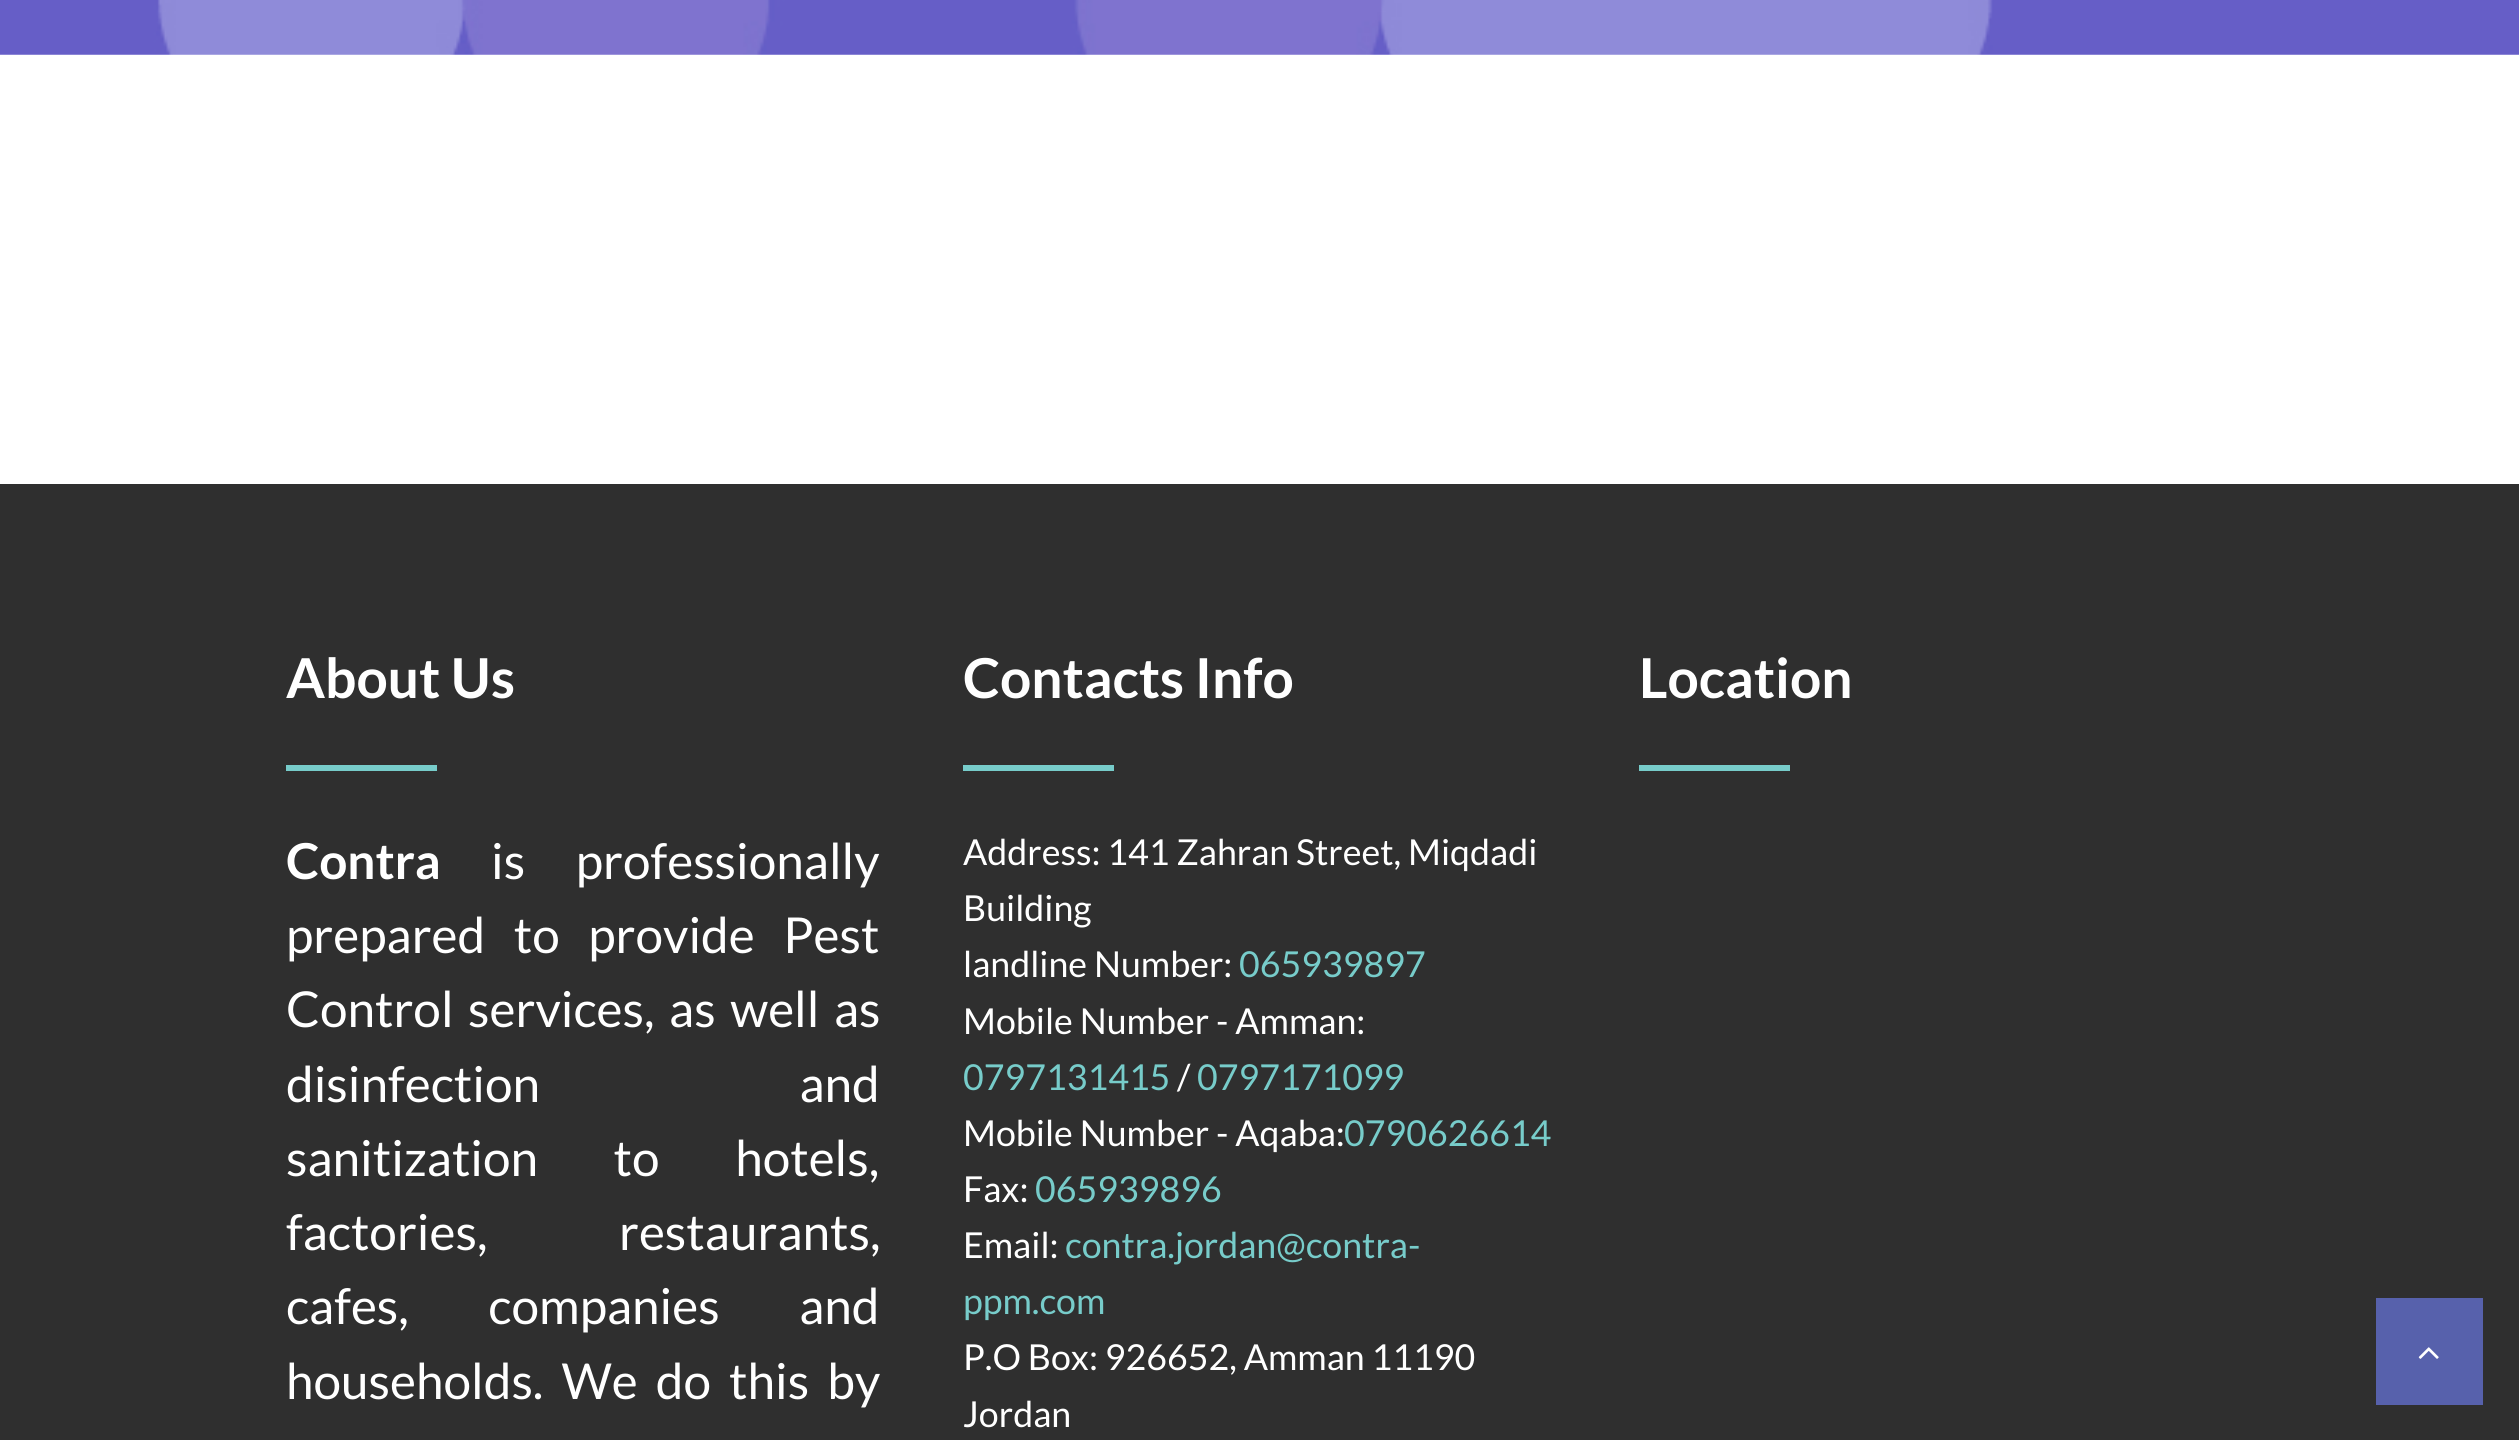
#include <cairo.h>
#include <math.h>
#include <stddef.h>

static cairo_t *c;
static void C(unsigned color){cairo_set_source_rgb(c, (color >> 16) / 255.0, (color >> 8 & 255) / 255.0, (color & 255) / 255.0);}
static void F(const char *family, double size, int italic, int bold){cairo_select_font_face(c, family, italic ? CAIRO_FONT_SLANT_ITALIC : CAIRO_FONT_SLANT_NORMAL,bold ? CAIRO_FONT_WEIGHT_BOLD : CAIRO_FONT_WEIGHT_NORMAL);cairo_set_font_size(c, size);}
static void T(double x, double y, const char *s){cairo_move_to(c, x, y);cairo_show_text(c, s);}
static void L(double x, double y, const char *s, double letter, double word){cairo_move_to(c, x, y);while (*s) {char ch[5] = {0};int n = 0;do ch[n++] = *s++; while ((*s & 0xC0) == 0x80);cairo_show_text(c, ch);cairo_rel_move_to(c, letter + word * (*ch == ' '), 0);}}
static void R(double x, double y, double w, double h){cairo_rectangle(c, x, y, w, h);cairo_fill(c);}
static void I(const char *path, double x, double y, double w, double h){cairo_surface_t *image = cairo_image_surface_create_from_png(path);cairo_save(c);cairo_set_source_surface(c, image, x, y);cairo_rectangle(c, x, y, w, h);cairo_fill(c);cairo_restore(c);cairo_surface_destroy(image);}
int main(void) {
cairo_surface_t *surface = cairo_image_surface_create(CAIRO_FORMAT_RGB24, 2519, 1440);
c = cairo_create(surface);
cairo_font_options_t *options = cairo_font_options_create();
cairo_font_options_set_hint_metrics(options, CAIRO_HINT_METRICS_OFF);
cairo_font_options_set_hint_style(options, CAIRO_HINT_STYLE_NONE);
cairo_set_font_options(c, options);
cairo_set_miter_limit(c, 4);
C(0xffffff);
cairo_paint(c);
I("1.png",0,0,2519,55);
C(0x2f2f2f);
R(0,484,2519,956);
F("Lato",55,0,1);
C(0xffffff);
T(286,698,"About Us");
C(0x77ccca);
R(286,765,151,6);
F("Lato",49.5,0,1);
C(0xffffff);
T(286,879,"Contra");
F("Lato",49.5,0,0);
L(491,879,"is professionally",0,41);
L(286,953,"prepared to provide Pest",0,19);
L(286,1027,"Control services, as well as",0,5);
L(286,1102,"disinfection and",0,250);
L(286,1176,"sanitization to hotels,",0,66);
L(286,1250,"factories, restaurants,",0,122);
L(286,1324,"cafes, companies and",0,70);
L(286,1399,"households. We do this by",0,8.5);
F("Lato",55,0,1);
T(963,698,"Contacts Info");
C(0x77ccca);
R(963,765,151,6);
F("Lato",35.75,0,0);
C(0xffffff);
T(963,865,"Address: 141 Zahran Street, Miqdadi");
T(963,921,"Building");
T(963,977,"landline Number:");
C(0x77ccca);
T(1239,977,"065939897");
C(0xffffff);
T(963,1034,"Mobile Number - Amman:");
C(0x77ccca);
T(963,1090,"0797131415");
C(0xffffff);
T(1177,1090,"/");
C(0x77ccca);
T(1197,1090,"0797171099");
C(0xffffff);
T(963,1146,"Mobile Number - Aqaba:");
C(0x77ccca);
T(1344,1146,"0790626614");
C(0xffffff);
T(963,1202,"Fax:");
C(0x77ccca);
T(1035,1202,"065939896");
C(0xffffff);
T(963,1258,"Email:");
C(0x77ccca);
T(1065,1258,"contra.jordan@contra-");
T(963,1314,"ppm.com");
C(0xffffff);
T(963,1370,"P.O Box: 926652, Amman 11190");
T(963,1427,"Jordan");
F("Lato",55,0,1);
T(1639,698,"Location");
C(0x77ccca);
R(1639,765,151,6);
C(0x5761ac);
R(2376,1298,107,107);
I("2.png",2418,1347,21,12);
cairo_surface_write_to_png(surface, "o.png");
cairo_font_options_destroy(options);
cairo_destroy(c);
cairo_surface_destroy(surface);
return 0;
}
